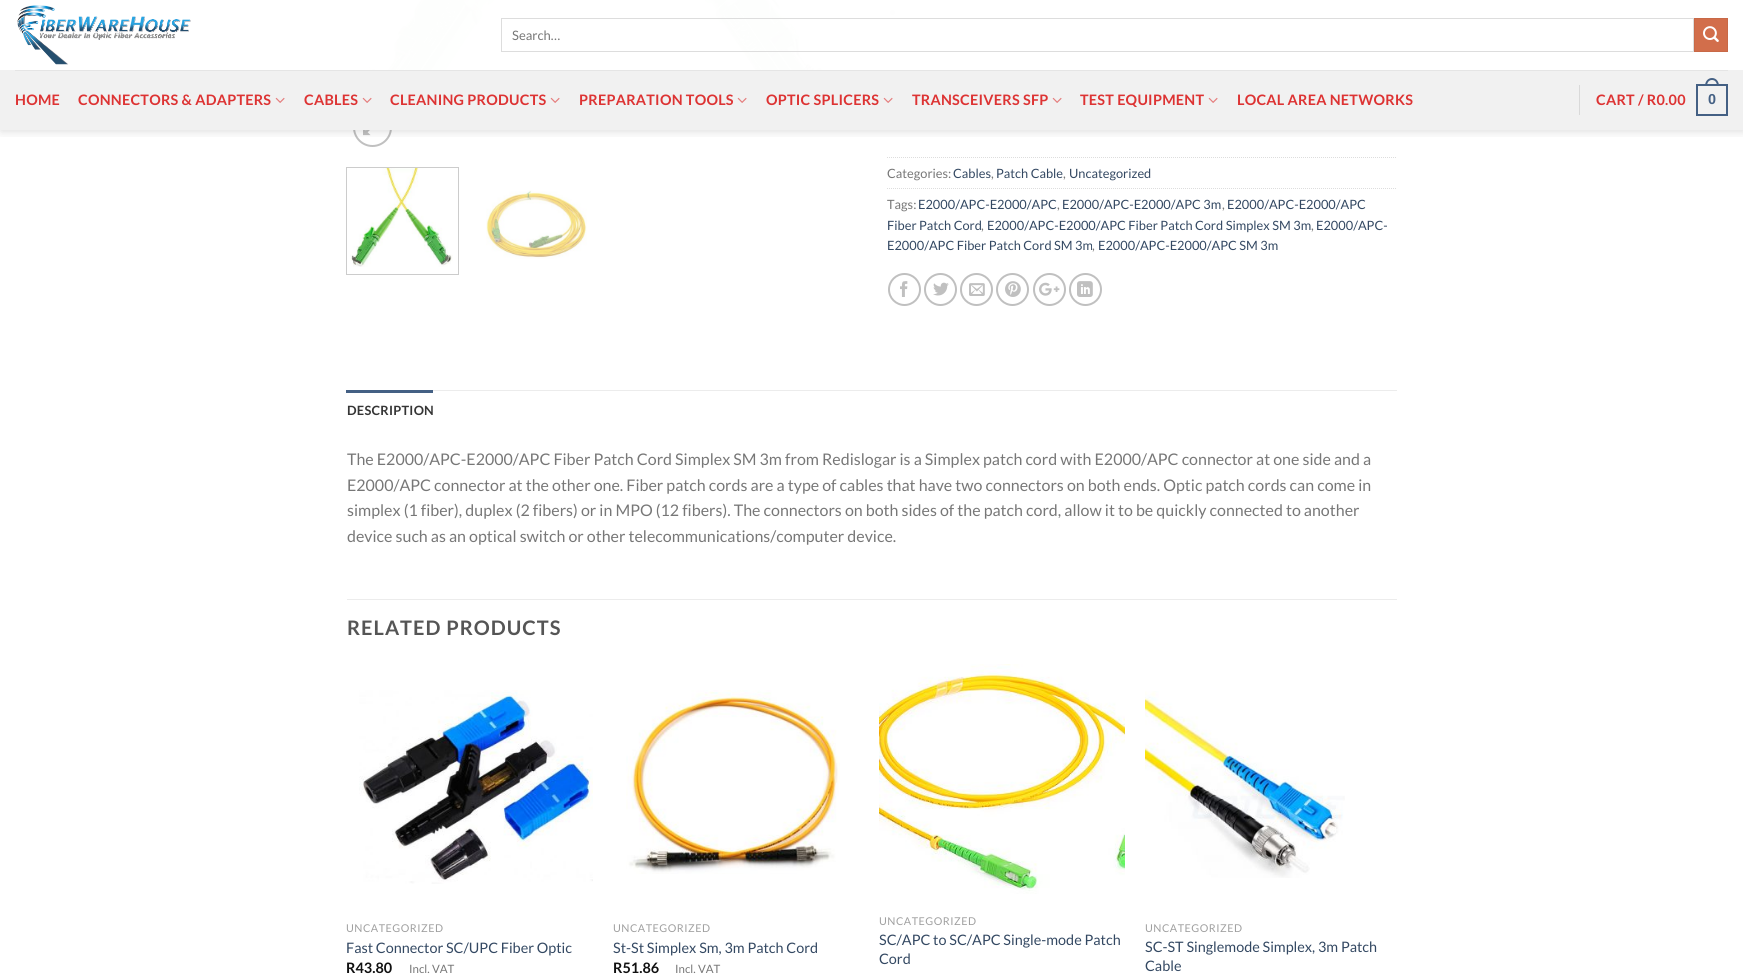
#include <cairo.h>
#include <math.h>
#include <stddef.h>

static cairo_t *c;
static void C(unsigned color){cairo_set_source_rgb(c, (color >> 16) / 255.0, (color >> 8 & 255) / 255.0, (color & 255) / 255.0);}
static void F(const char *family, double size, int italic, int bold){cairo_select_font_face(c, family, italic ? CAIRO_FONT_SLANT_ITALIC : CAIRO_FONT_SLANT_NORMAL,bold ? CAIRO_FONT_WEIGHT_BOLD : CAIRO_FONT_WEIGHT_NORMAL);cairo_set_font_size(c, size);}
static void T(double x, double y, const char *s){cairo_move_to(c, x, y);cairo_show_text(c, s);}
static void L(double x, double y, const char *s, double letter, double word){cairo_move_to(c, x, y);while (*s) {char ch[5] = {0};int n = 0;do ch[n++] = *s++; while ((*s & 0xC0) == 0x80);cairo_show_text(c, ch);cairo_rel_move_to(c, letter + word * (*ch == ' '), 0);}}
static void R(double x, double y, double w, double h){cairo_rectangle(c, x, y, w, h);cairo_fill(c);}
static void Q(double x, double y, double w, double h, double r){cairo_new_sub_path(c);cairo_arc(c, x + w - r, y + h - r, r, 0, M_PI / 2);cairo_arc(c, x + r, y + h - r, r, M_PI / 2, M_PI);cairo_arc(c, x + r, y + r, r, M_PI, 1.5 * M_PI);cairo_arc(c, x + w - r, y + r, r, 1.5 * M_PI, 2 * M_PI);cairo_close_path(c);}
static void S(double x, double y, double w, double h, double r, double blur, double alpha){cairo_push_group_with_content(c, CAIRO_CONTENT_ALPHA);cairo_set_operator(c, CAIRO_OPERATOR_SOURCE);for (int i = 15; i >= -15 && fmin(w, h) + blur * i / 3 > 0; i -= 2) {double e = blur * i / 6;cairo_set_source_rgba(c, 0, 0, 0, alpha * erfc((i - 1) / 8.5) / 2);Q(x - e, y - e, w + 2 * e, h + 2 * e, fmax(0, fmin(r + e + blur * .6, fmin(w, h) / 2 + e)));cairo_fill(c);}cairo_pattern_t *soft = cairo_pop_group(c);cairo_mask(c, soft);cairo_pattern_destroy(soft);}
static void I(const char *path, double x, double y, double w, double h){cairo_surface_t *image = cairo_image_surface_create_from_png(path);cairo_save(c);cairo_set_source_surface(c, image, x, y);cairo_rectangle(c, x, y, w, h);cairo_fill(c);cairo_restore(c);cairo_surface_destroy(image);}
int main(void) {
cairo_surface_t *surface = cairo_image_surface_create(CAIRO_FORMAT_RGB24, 1743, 974);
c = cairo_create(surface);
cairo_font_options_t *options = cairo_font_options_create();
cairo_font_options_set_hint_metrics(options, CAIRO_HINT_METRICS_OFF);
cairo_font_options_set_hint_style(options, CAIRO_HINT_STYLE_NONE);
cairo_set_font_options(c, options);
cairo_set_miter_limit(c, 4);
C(0xffffff);
cairo_paint(c);
I("4.png",367,0,463,70);
cairo_arc(c,372.5,127.5,18.5,0,2 * M_PI);
C(0xc0c0c0);
cairo_stroke(c);
I("5.png",363,130,8,6);
C(0x777777);
cairo_arc(c,892.5,12.5,2.5,0,2 * M_PI);
cairo_fill(c);
cairo_save(c);
cairo_rectangle(c,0,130,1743,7);
cairo_clip(c);
C(0x000000);
S(1,1,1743,130,0,5,.15);
cairo_restore(c);
cairo_set_source_rgba(c,1,1,1,0.9);
R(367,0,528,70);
R(371,0,524,70);
I("1.png",17,5,174,60);
cairo_rectangle(c,501.5,18.5,1192,33);
C(0xdddddd);
cairo_set_line_width(c,1);
cairo_stroke(c);
F("Lato",13,0,0);
C(0x777777);
T(512,40,"Search…");
C(0xd26e4b);
cairo_rectangle(c,1694.5,18.5,33,33);
cairo_fill_preserve(c);
C(0xc86947);
cairo_stroke(c);
I("2.png",1703,26,16,16);
C(0xf1f1f1);
R(0,70,1743,60);
C(0xe5e5e5);
R(15,70,1713,1);
F("Lato",14.4,0,1);
C(0xdd3333);
L(15,105,"HOME",.25,0);
L(78,105,"CONNECTORS & ADAPTERS",.25,0);
I("3.png",275,97,10,6);
L(304,105,"CABLES",.25,0);
I("3.png",362,97,10,6);
L(390,105,"CLEANING PRODUCTS",.25,0);
I("3.png",550,97,10,6);
L(579,105,"PREPARATION TOOLS",.25,0);
I("3.png",737,97,10,6);
L(766,105,"OPTIC SPLICERS",.25,0);
I("3.png",883,97,10,6);
L(912,105,"TRANSCEIVERS SFP",.25,0);
I("3.png",1052,97,10,6);
L(1080,105,"TEST EQUIPMENT",.25,0);
I("3.png",1208,97,10,6);
L(1237,105,"LOCAL AREA NETWORKS",.25,0);
C(0xd9d9d9);
R(1579,85,1,30);
C(0xdd3333);
L(1596,105,"CART / R0.00",.25,0);
cairo_rectangle(c,1697,85,30,30);
C(0x446084);
cairo_set_line_width(c,2);
cairo_stroke(c);
cairo_set_fill_rule(c,CAIRO_FILL_RULE_EVEN_ODD);
cairo_new_path(c);
cairo_move_to(c,1712,78);
cairo_curve_to(c,1716.5,78,1719,82,1719,86);
cairo_line_to(c,1705,86);
cairo_curve_to(c,1705,82,1707.5,78,1712,78);
cairo_close_path(c);
cairo_move_to(c,1712,80);
cairo_curve_to(c,1715.5,80,1717,83,1717,86);
cairo_line_to(c,1707,86);
cairo_curve_to(c,1707,83,1708.5,80,1712,80);
cairo_close_path(c);
cairo_fill(c);
F("Liberation Sans",14.4,0,1);
L(1708,104,"0",.25,0);
cairo_rectangle(c,346.5,167.5,112,107);
C(0xcccccc);
cairo_set_line_width(c,1);
cairo_stroke(c);
I("6.png",350,168,103,99);
I("7.png",486,190,101,69);
cairo_new_path(c);
cairo_move_to(c,887,157.5);
cairo_line_to(c,1397,157.5);
C(0xdddddd);
cairo_set_dash(c,(double[]){1,1},2,0);
cairo_stroke(c);
F("Lato",12.8,0,0);
C(0x777777);
T(887,178,"Categories:");
C(0x334862);
T(953,178,"Cables");
C(0x777777);
T(991,178,",");
C(0x334862);
T(996,178,"Patch Cable");
C(0x777777);
T(1063,178,",");
C(0x334862);
T(1069,178,"Uncategorized");
cairo_new_path(c);
cairo_move_to(c,887,188.5);
cairo_line_to(c,1397,188.5);
C(0xdddddd);
cairo_stroke(c);
C(0x777777);
T(887,209,"Tags:");
C(0x334862);
T(918,209,"E2000/APC-E2000/APC");
C(0x777777);
T(1057,209,",");
C(0x334862);
T(1062,209,"E2000/APC-E2000/APC 3m");
C(0x777777);
T(1222,209,",");
C(0x334862);
T(1227,209,"E2000/APC-E2000/APC");
T(887,230,"Fiber Patch Cord");
C(0x777777);
T(981,230,",");
C(0x334862);
T(987,230,"E2000/APC-E2000/APC Fiber Patch Cord Simplex SM 3m");
C(0x777777);
T(1311,230,",");
C(0x334862);
T(1316,230,"E2000/APC-");
T(887,250,"E2000/APC Fiber Patch Cord SM 3m");
C(0x777777);
T(1092,250,",");
C(0x334862);
T(1098,250,"E2000/APC-E2000/APC SM 3m");
cairo_new_path(c);
cairo_arc(c,904.5,289.5,15.5,0,2 * M_PI);
C(0xc0c0c0);
cairo_set_line_width(c,2);
cairo_set_dash(c,NULL,0,0);
cairo_stroke(c);
I("8.png",900,281,8,16);
cairo_arc(c,940.5,289.5,15.5,0,2 * M_PI);
cairo_stroke(c);
I("9.png",933,282,16,14);
cairo_arc(c,976.5,289.5,15.5,0,2 * M_PI);
cairo_stroke(c);
I("10.png",969,283,16,13);
cairo_arc(c,1012.5,289.5,15.5,0,2 * M_PI);
cairo_stroke(c);
I("11.png",1005,281,16,16);
cairo_arc(c,1049.5,289.5,15.5,0,2 * M_PI);
cairo_stroke(c);
I("12.png",1039,282,21,14);
cairo_arc(c,1085.5,289.5,15.5,0,2 * M_PI);
cairo_stroke(c);
I("13.png",1077,281,16,16);
C(0xececec);
R(433,390,964,1);
C(0x446084);
R(346,390,87,3);
F("Lato",12.8,0,1);
C(0x353535);
L(347,415,"DESCRIPTION",.25,0);
F("Lato",16,0,0);
C(0x777777);
T(347,465,"The E2000/APC-E2000/APC Fiber Patch Cord Simplex SM 3m from Redislogar is a Simplex patch cord with E2000/APC connector at one side and a");
T(347,491,"E2000/APC connector at the other one. Fiber patch cords are a type of cables that have two connectors on both ends. Optic patch cords can come in");
T(347,516,"simplex (1 fiber), duplex (2 fibers) or in MPO (12 fibers). The connectors on both sides of the patch cord, allow it to be quickly connected to another");
T(347,542,"device such as an optical switch or other telecommunications/computer device.");
C(0xececec);
R(347,599,1050,1);
F("Lato",20,0,1);
C(0x555555);
L(347,635,"RELATED PRODUCTS",1,0);
I("14.png",359,690,234,194);
F("Lato",10.75,0,0);
C(0xa0a0a0);
L(346,932,"UNCATEGORIZED",.5,0);
F("Lato",14.4,0,0);
C(0x334862);
T(346,953,"Fast Connector SC/UPC Fiber Optic");
F("Lato",14.4,0,1);
C(0x111111);
T(346,973,"R43.80");
F("Lato",11.5,0,0);
C(0x777777);
T(409,973,"Incl. VAT");
I("15.png",626,690,214,184);
F("Lato",10.75,0,0);
C(0xa0a0a0);
L(613,932,"UNCATEGORIZED",.5,0);
F("Lato",14.4,0,0);
C(0x334862);
T(613,953,"St-St Simplex Sm, 3m Patch Cord");
F("Lato",14.4,0,1);
C(0x111111);
T(613,973,"R51.86");
F("Lato",11.5,0,0);
C(0x777777);
T(675,973,"Incl. VAT");
I("16.png",879,664,246,230);
F("Lato",10.75,0,0);
C(0xa0a0a0);
L(879,925,"UNCATEGORIZED",.5,0);
F("Lato",14.4,0,0);
C(0x334862);
T(879,945,"SC/APC to SC/APC Single-mode Patch");
T(879,964,"Cord");
I("17.png",1145,691,200,187);
F("Lato",10.75,0,0);
C(0xa0a0a0);
L(1145,932,"UNCATEGORIZED",.5,0);
F("Lato",14.4,0,0);
C(0x334862);
T(1145,952,"SC-ST Singlemode Simplex, 3m Patch");
T(1145,971,"Cable");
cairo_surface_write_to_png(surface, "o.png");
cairo_font_options_destroy(options);
cairo_destroy(c);
cairo_surface_destroy(surface);
return 0;
}
